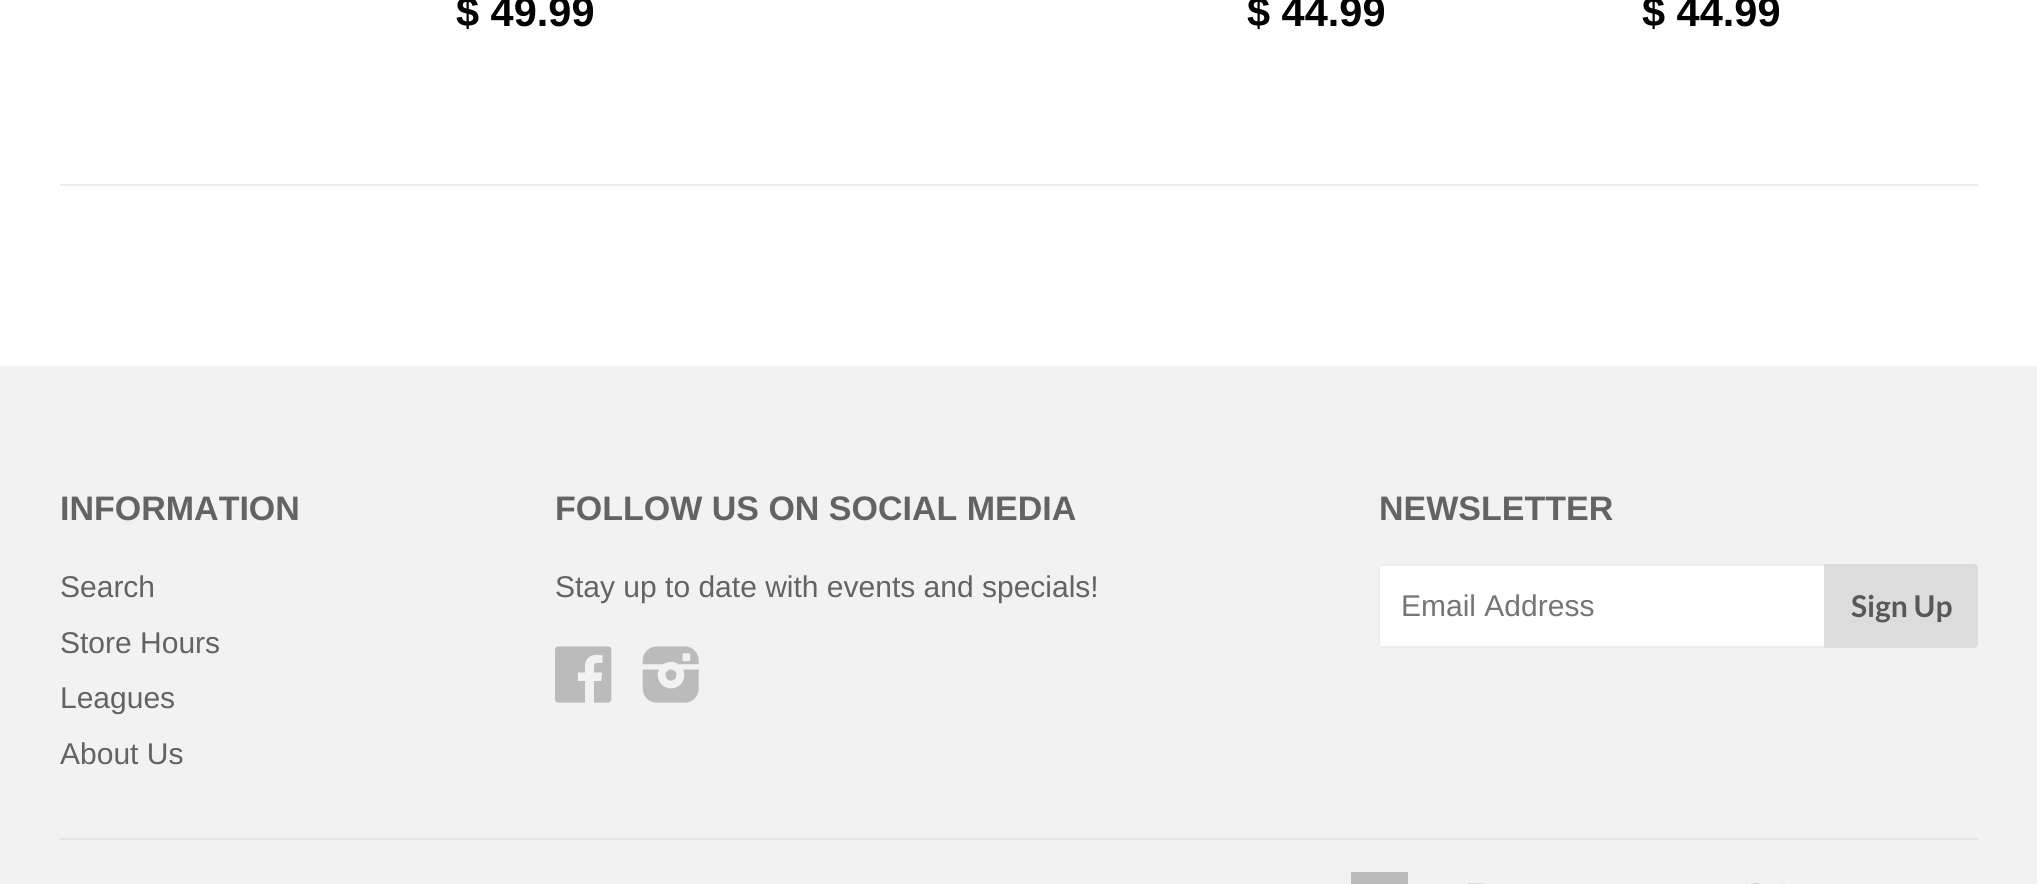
#include <cairo.h>
#include <math.h>
#include <stddef.h>

static cairo_t *c;
static void C(unsigned color){cairo_set_source_rgb(c, (color >> 16) / 255.0, (color >> 8 & 255) / 255.0, (color & 255) / 255.0);}
static void F(const char *family, double size, int italic, int bold){cairo_select_font_face(c, family, italic ? CAIRO_FONT_SLANT_ITALIC : CAIRO_FONT_SLANT_NORMAL,bold ? CAIRO_FONT_WEIGHT_BOLD : CAIRO_FONT_WEIGHT_NORMAL);cairo_set_font_size(c, size);}
static void T(double x, double y, const char *s){cairo_move_to(c, x, y);cairo_show_text(c, s);}
static void R(double x, double y, double w, double h){cairo_rectangle(c, x, y, w, h);cairo_fill(c);}
static void I(const char *path, double x, double y, double w, double h){cairo_surface_t *image = cairo_image_surface_create_from_png(path);cairo_save(c);cairo_set_source_surface(c, image, x, y);cairo_rectangle(c, x, y, w, h);cairo_fill(c);cairo_restore(c);cairo_surface_destroy(image);}
int main(void) {
cairo_surface_t *surface = cairo_image_surface_create(CAIRO_FORMAT_RGB24, 2037, 884);
c = cairo_create(surface);
cairo_font_options_t *options = cairo_font_options_create();
cairo_font_options_set_hint_metrics(options, CAIRO_HINT_METRICS_OFF);
cairo_font_options_set_hint_style(options, CAIRO_HINT_STYLE_NONE);
cairo_set_font_options(c, options);
cairo_set_miter_limit(c, 4);
C(0xffffff);
cairo_paint(c);
F("Liberation Sans",41.5,0,1);
C(0x000000);
T(456,26,"$ 49.99");
T(1247,26,"$ 44.99");
T(1642,26,"$ 44.99");
C(0xececec);
R(60,184,1918,2);
C(0xf2f2f2);
R(0,366,2037,518);
F("Liberation Sans",34,0,1);
C(0x636363);
T(60,520,"INFORMATION");
F("Liberation Sans",30,0,0);
T(60,597,"Search");
T(60,653,"Store Hours");
T(60,708,"Leagues");
T(60,764,"About Us");
F("Liberation Sans",34,0,1);
T(555,520,"FOLLOW US ON SOCIAL MEDIA");
F("Liberation Sans",30,0,0);
T(555,597,"Stay up to date with events and specials!");
I("1.png",555,646,57,57);
I("2.png",642,646,57,57);
F("Liberation Sans",34,0,1);
T(1379,520,"NEWSLETTER");
C(0xffffff);
cairo_new_path(c);
cairo_move_to(c,1382,564);
cairo_line_to(c,1824,564);
cairo_line_to(c,1824,648);
cairo_line_to(c,1382,648);
cairo_curve_to(c,1380,648,1378,646,1378,644);
cairo_line_to(c,1378,568);
cairo_curve_to(c,1378,566,1380,564,1382,564);
cairo_close_path(c);
cairo_fill(c);
C(0xececec);
R(1380,564,444,2);
R(1380,646,444,2);
R(1378,566,2,80);
F("Liberation Sans",30,0,0);
C(0x757575);
T(1401,616,"Email Address");
C(0xdcdcdc);
cairo_new_path(c);
cairo_move_to(c,1824,564);
cairo_line_to(c,1974,564);
cairo_curve_to(c,1976,564,1978,566,1978,568);
cairo_line_to(c,1978,644);
cairo_curve_to(c,1978,646,1976,648,1974,648);
cairo_line_to(c,1824,648);
cairo_close_path(c);
cairo_fill(c);
F("Lato",30,0,1);
C(0x585858);
T(1851,617,"Sign Up");
C(0xe5e5e5);
R(60,838,1918,2);
C(0xbbbbbb);
R(1351,872,57,12);
I("3.png",1467,883,17,1);
I("4.png",1751,883,35,1);
cairo_surface_write_to_png(surface, "o.png");
cairo_font_options_destroy(options);
cairo_destroy(c);
cairo_surface_destroy(surface);
return 0;
}
